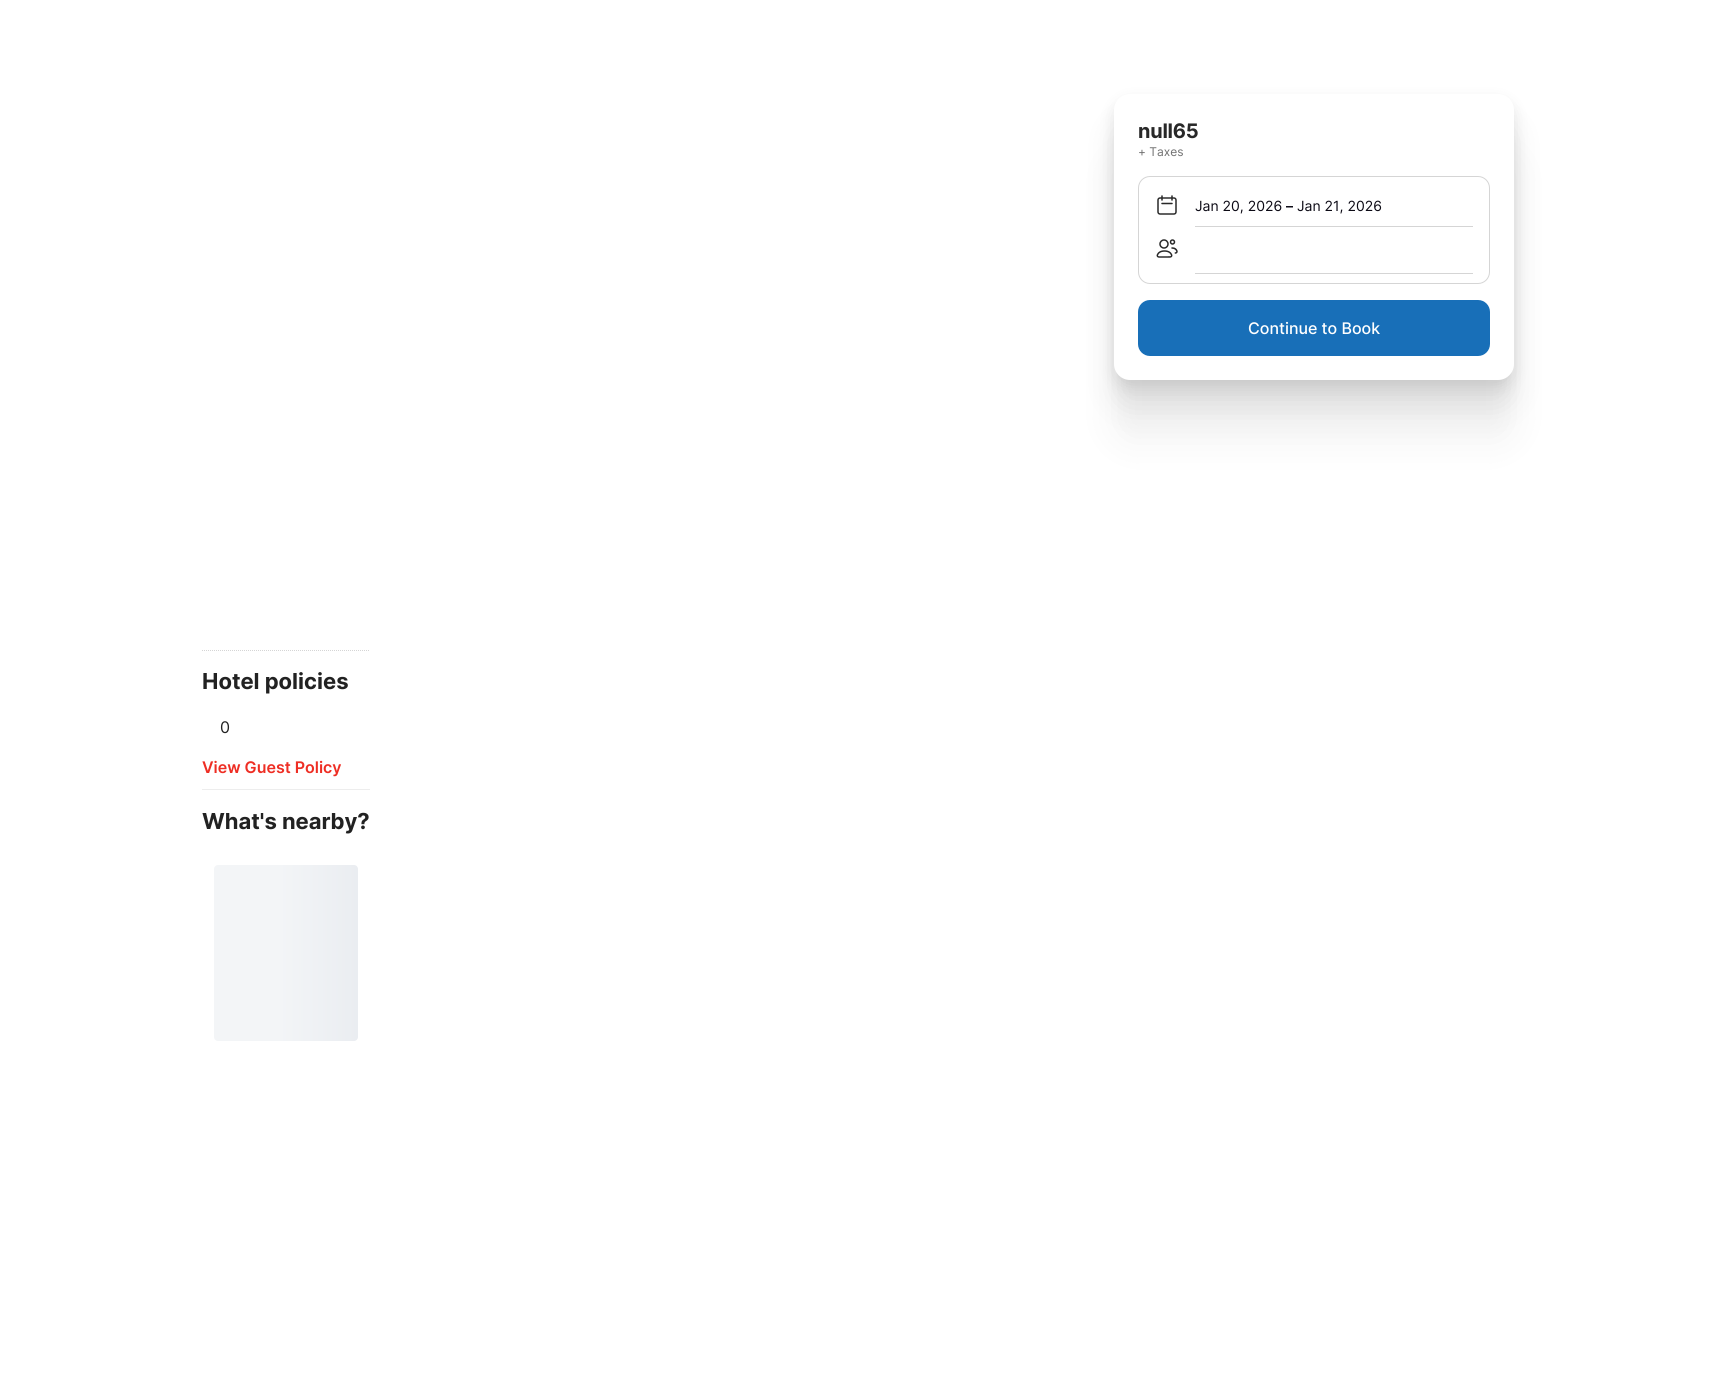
#include <cairo.h>
#include <math.h>
#include <stddef.h>

static cairo_t *c;
static void C(unsigned color){cairo_set_source_rgb(c, (color >> 16) / 255.0, (color >> 8 & 255) / 255.0, (color & 255) / 255.0);}
static void F(const char *family, double size, int italic, int bold){cairo_select_font_face(c, family, italic ? CAIRO_FONT_SLANT_ITALIC : CAIRO_FONT_SLANT_NORMAL,bold ? CAIRO_FONT_WEIGHT_BOLD : CAIRO_FONT_WEIGHT_NORMAL);cairo_set_font_size(c, size);}
static void T(double x, double y, const char *s){cairo_move_to(c, x, y);cairo_show_text(c, s);}
static void L(double x, double y, const char *s, double letter, double word){cairo_move_to(c, x, y);while (*s) {char ch[5] = {0};int n = 0;do ch[n++] = *s++; while ((*s & 0xC0) == 0x80);cairo_show_text(c, ch);cairo_rel_move_to(c, letter + word * (*ch == ' '), 0);}}
static void R(double x, double y, double w, double h){cairo_rectangle(c, x, y, w, h);cairo_fill(c);}
static void Q(double x, double y, double w, double h, double r){cairo_new_sub_path(c);cairo_arc(c, x + w - r, y + h - r, r, 0, M_PI / 2);cairo_arc(c, x + r, y + h - r, r, M_PI / 2, M_PI);cairo_arc(c, x + r, y + r, r, M_PI, 1.5 * M_PI);cairo_arc(c, x + w - r, y + r, r, 1.5 * M_PI, 2 * M_PI);cairo_close_path(c);}
static void S(double x, double y, double w, double h, double r, double blur, double alpha){cairo_push_group_with_content(c, CAIRO_CONTENT_ALPHA);cairo_set_operator(c, CAIRO_OPERATOR_SOURCE);for (int i = 15; i >= -15 && fmin(w, h) + blur * i / 3 > 0; i -= 2) {double e = blur * i / 6;cairo_set_source_rgba(c, 0, 0, 0, alpha * erfc((i - 1) / 8.5) / 2);Q(x - e, y - e, w + 2 * e, h + 2 * e, fmax(0, fmin(r + e + blur * .6, fmin(w, h) / 2 + e)));cairo_fill(c);}cairo_pattern_t *soft = cairo_pop_group(c);cairo_mask(c, soft);cairo_pattern_destroy(soft);}
static void I(const char *path, double x, double y, double w, double h){cairo_surface_t *image = cairo_image_surface_create_from_png(path);cairo_save(c);cairo_set_source_surface(c, image, x, y);cairo_rectangle(c, x, y, w, h);cairo_fill(c);cairo_restore(c);cairo_surface_destroy(image);}
int main(void) {
cairo_surface_t *surface = cairo_image_surface_create(CAIRO_FORMAT_RGB24, 1716, 1395);
c = cairo_create(surface);
cairo_font_options_t *options = cairo_font_options_create();
cairo_font_options_set_hint_metrics(options, CAIRO_HINT_METRICS_OFF);
cairo_font_options_set_hint_style(options, CAIRO_HINT_STYLE_NONE);
cairo_set_font_options(c, options);
cairo_set_miter_limit(c, 4);
cairo_pattern_t *gradient;
C(0xffffff);
cairo_paint(c);
C(0x000000);
S(1114,101,400,286,16,7.5,.1);
S(1114,122,400,286,16,14,.09);
S(1114,156,400,286,16,18.5,.05);
C(0xffffff);
Q(1114,94,400,286,16);
cairo_fill(c);
F("Inter",20,0,1);
C(0x282828);
L(1138,138,"null65",-.25,0);
F("Inter",12,0,0);
C(0x717171);
T(1138,156,"+ Taxes");
Q(1138.5,176.5,351,107,11.5);
C(0xd5d5d5);
cairo_set_line_width(c,1);
cairo_stroke(c);
I("1.png",1157,195,20,20);
F("Inter",14,0,0);
C(0x0c0a15);
T(1195,211,"Jan 20, 2026");
F("Inter SemiBold",14,0,0);
T(1286,211,"–");
F("Inter",14,0,0);
T(1297,211,"Jan 21, 2026");
C(0xd5d5d5);
R(1195,226,278,1);
I("2.png",1156,239,22,19);
R(1195,273,278,1);
C(0x186fb8);
Q(1138,300,352,56,12);
cairo_fill(c);
F("Inter Medium",16,0,0);
C(0xffffff);
T(1248,334,"Continue to Book");
cairo_new_path(c);
cairo_move_to(c,202,650.5);
cairo_line_to(c,370,650.5);
C(0xd5d5d5);
cairo_set_dash(c,(double[]){1,1},2,0);
cairo_stroke(c);
F("Inter",22,0,1);
C(0x222222);
T(202,689,"Hotel policies");
F("Inter",16,0,0);
T(220,733,"0");
C(0xededed);
R(202,789,168,1);
F("Inter SemiBold",16,0,0);
C(0xee2e24);
T(202,773,"View Guest Policy");
F("Inter",22,0,1);
C(0x222222);
T(202,829,"What's nearby?");
gradient = cairo_pattern_create_linear(214,917,1014,917);
cairo_pattern_add_color_stop_rgba(gradient,.08,0.953,0.961,0.969,1);
cairo_pattern_add_color_stop_rgba(gradient,.18,0.918,0.929,0.945,1);
cairo_pattern_add_color_stop_rgba(gradient,.33,0.953,0.961,0.969,1);
cairo_set_source(c,gradient);
cairo_pattern_destroy(gradient);
Q(214,865,144,176,4);
cairo_fill(c);
cairo_surface_write_to_png(surface, "o.png");
cairo_font_options_destroy(options);
cairo_destroy(c);
cairo_surface_destroy(surface);
return 0;
}
